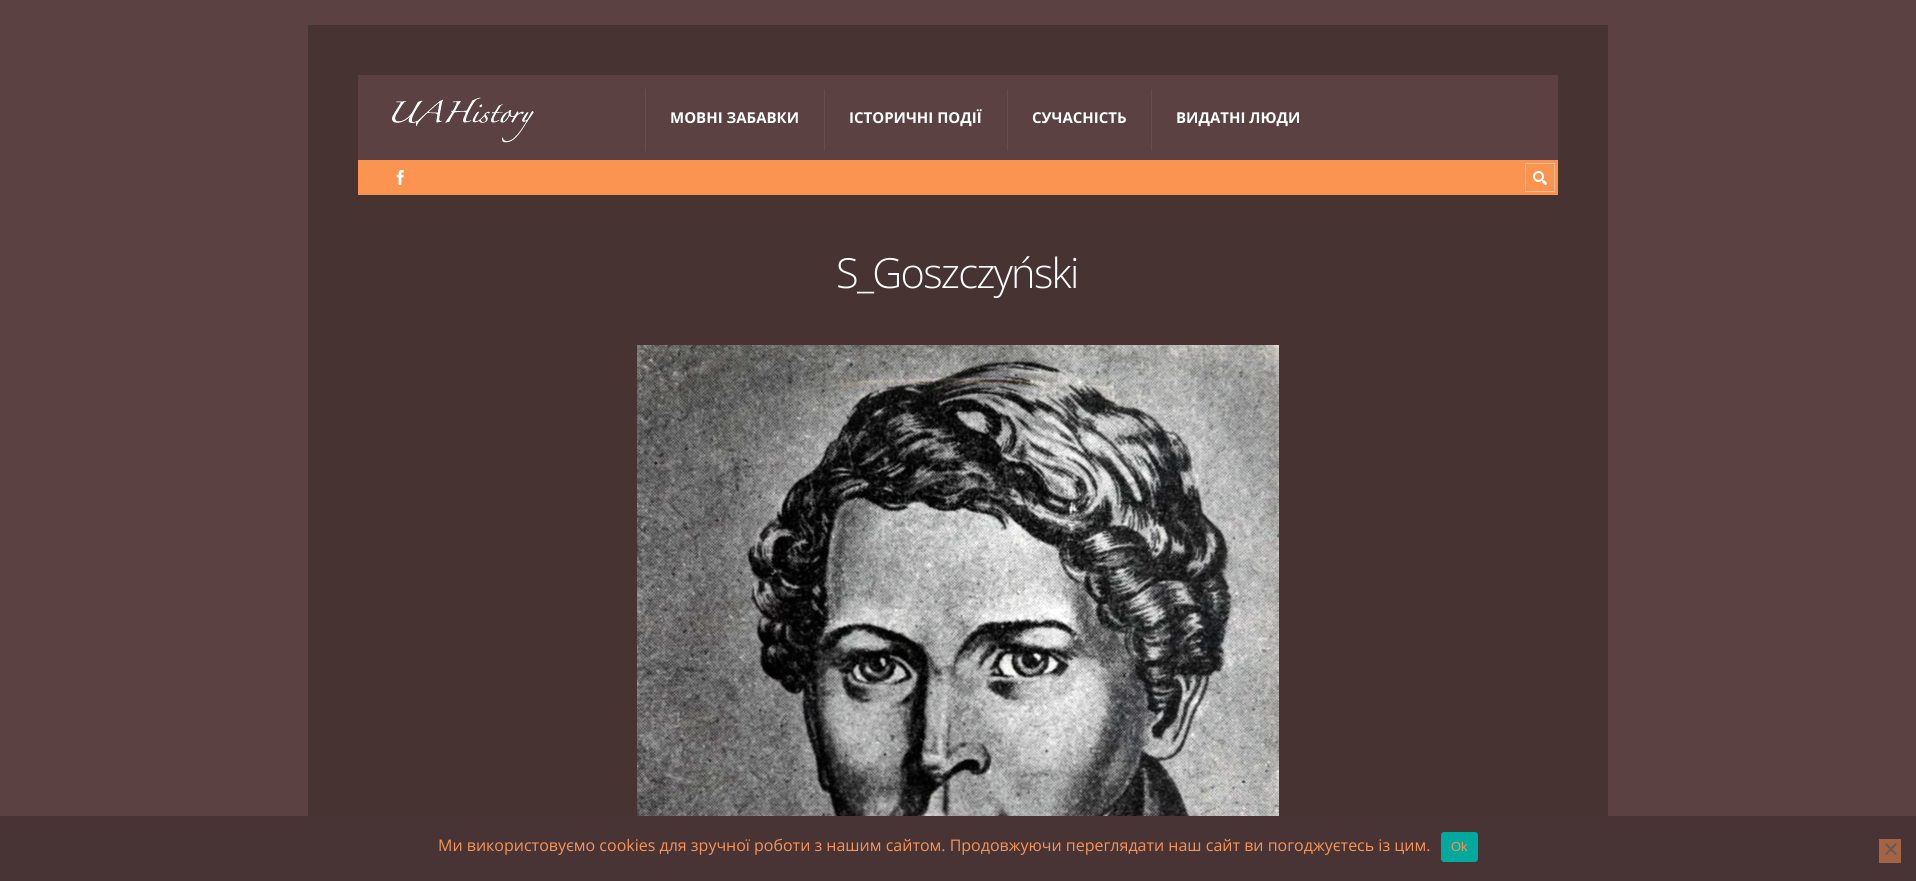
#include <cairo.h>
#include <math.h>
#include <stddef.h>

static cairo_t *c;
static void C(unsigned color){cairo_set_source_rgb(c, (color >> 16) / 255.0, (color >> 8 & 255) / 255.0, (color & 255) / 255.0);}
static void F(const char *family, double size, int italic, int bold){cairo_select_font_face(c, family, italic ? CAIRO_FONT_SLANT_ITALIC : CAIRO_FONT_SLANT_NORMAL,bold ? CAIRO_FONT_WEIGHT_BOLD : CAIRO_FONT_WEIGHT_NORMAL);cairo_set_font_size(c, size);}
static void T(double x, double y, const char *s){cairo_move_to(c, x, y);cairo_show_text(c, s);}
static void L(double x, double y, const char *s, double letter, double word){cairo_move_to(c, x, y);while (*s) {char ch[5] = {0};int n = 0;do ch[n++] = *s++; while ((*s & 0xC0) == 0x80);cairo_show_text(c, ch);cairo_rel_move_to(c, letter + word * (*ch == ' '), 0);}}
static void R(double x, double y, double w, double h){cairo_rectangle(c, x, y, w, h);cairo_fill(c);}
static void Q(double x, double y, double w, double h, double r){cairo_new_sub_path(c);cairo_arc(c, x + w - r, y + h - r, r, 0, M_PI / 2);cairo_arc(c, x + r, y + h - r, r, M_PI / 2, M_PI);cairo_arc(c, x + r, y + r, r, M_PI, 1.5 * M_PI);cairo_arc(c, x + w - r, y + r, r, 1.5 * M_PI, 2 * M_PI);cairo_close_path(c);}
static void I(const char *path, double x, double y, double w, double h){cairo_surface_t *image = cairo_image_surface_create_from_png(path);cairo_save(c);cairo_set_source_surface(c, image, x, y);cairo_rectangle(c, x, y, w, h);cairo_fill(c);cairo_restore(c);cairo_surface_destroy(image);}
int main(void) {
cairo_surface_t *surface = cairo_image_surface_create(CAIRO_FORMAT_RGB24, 1916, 881);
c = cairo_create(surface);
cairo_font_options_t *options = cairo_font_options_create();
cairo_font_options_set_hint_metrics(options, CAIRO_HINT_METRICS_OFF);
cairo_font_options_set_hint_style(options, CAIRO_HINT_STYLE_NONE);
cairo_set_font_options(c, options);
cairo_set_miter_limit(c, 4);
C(0x5b4141);
cairo_paint(c);
C(0x483333);
R(308,25,1300,791);
C(0x5b4141);
R(358,75,1200,85);
I("1.png",392,97,142,46);
C(0x664e4e);
R(645,89,1,62);
F("Open Sans",15,0,1);
C(0xffffff);
T(670,123,"МОВНІ ЗАБАВКИ");
C(0x664e4e);
R(824,89,1,62);
C(0xffffff);
T(849,123,"ІСТОРИЧНІ ПОДІЇ");
C(0x664e4e);
R(1007,89,1,62);
C(0xffffff);
T(1032,123,"СУЧАСНІСТЬ");
C(0x664e4e);
R(1151,89,1,62);
C(0xffffff);
T(1176,123,"ВИДАТНІ ЛЮДИ");
C(0xfb9351);
R(358,160,1200,35);
I("2.png",396,169,8,16);
cairo_save(c);
cairo_rectangle(c,1525,163,30,29);
cairo_clip(c);
C(0xfcb98e);
cairo_set_fill_rule(c,CAIRO_FILL_RULE_EVEN_ODD);
cairo_new_path(c);
cairo_move_to(c,1426,64);
cairo_line_to(c,1654,64);
cairo_line_to(c,1654,291);
cairo_line_to(c,1426,291);
cairo_close_path(c);
cairo_move_to(c,1524,162);
cairo_line_to(c,1554,162);
cairo_line_to(c,1554,191);
cairo_line_to(c,1524,191);
cairo_close_path(c);
cairo_fill(c);
cairo_set_source_rgba(c,1,1,1,0.35);
cairo_new_path(c);
cairo_move_to(c,1426,64);
cairo_line_to(c,1654,64);
cairo_line_to(c,1654,291);
cairo_line_to(c,1426,291);
cairo_close_path(c);
cairo_move_to(c,1526,164);
cairo_line_to(c,1556,164);
cairo_line_to(c,1556,193);
cairo_line_to(c,1526,193);
cairo_close_path(c);
cairo_fill(c);
cairo_restore(c);
I("3.png",1533,171,14,14);
F("Open Sans Light",41.5,0,0);
C(0xffffff);
L(836,288,"S_Goszczyński",-1.7,0);
I("4.png",637,345,642,471);
C(0x483434);
R(0,816,1916,65);
F("Open Sans",16,0,0);
C(0xf89358);
T(438,851,"Ми використовуємо cookies для зручної роботи з нашим сайтом. Продовжуючи переглядати наш сайт ви погоджуєтесь із цим.");
C(0x00a99d);
Q(1441,832,37,30,3);
cairo_fill(c);
F("Liberation Sans",13,0,0);
C(0xf89358);
T(1451,851,"Ok");
C(0xa26443);
R(1879,839,22,24);
C(0x645a5a);
cairo_new_path(c);
cairo_move_to(c,1895.5,843);
cairo_line_to(c,1897,844.5);
cairo_line_to(c,1886.5,855);
cairo_line_to(c,1885,854);
cairo_close_path(c);
cairo_fill(c);
cairo_new_path(c);
cairo_move_to(c,1885,844.5);
cairo_line_to(c,1886.5,843);
cairo_line_to(c,1897,854);
cairo_line_to(c,1895.5,855);
cairo_close_path(c);
cairo_fill(c);
cairo_surface_write_to_png(surface, "o.png");
cairo_font_options_destroy(options);
cairo_destroy(c);
cairo_surface_destroy(surface);
return 0;
}
